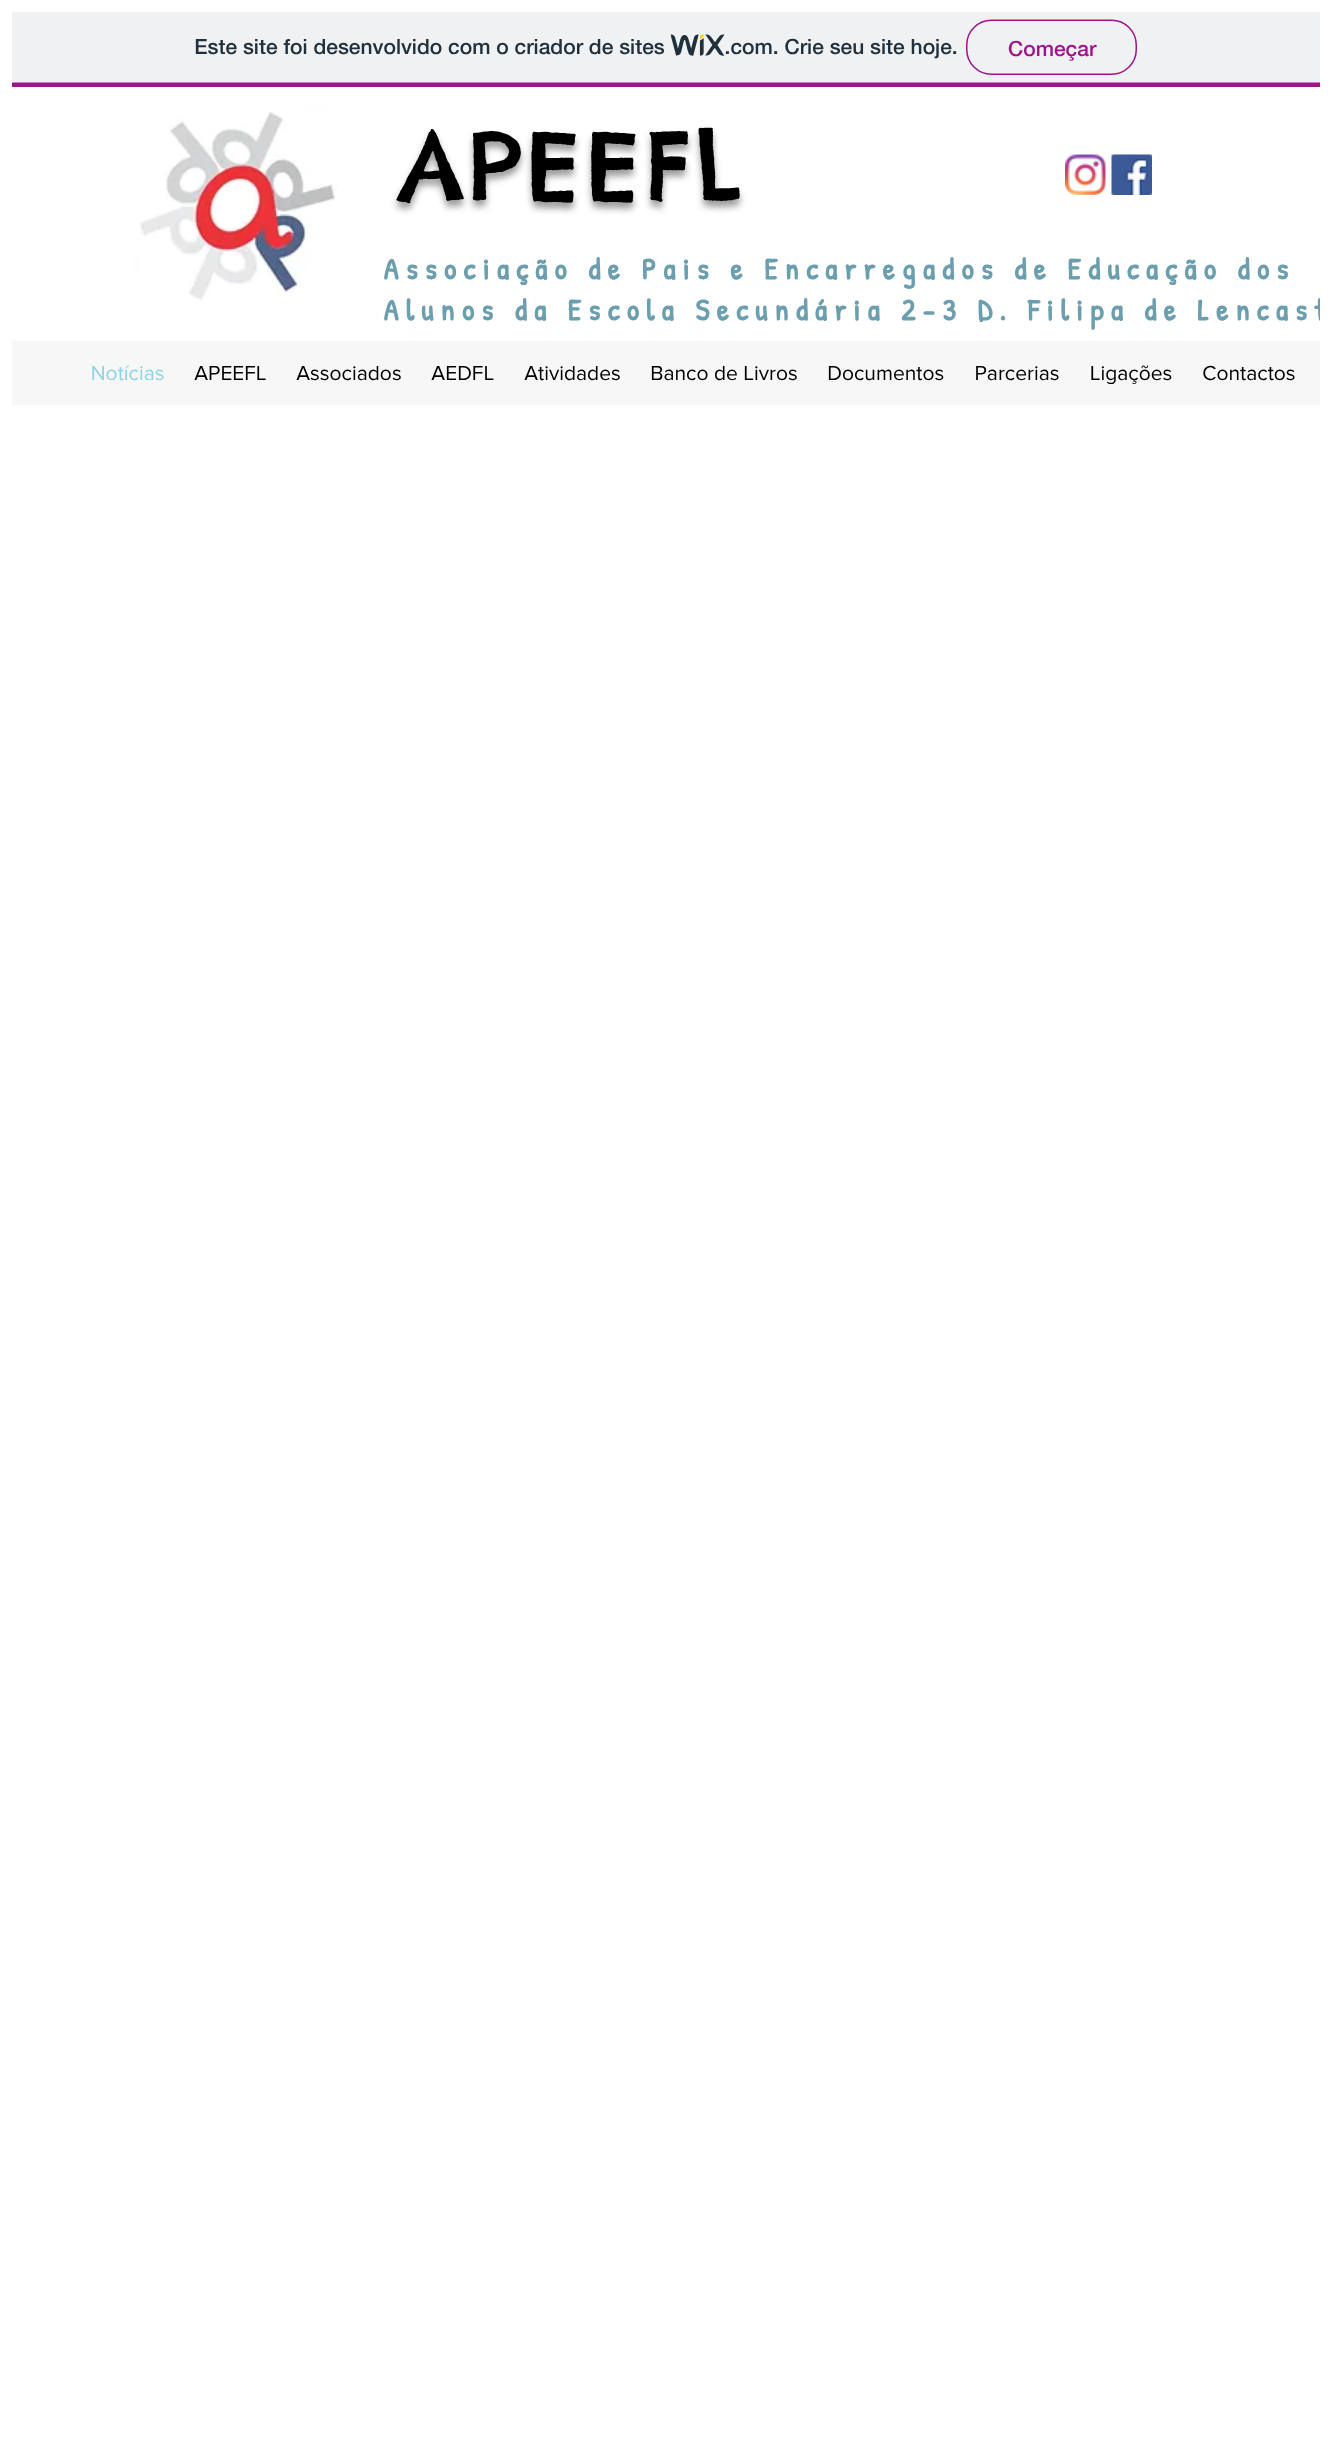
#include <cairo.h>
#include <math.h>
#include <stddef.h>

static cairo_t *c;
static void C(unsigned color){cairo_set_source_rgb(c, (color >> 16) / 255.0, (color >> 8 & 255) / 255.0, (color & 255) / 255.0);}
static void I(const char *path, double x, double y, double w, double h){cairo_surface_t *image = cairo_image_surface_create_from_png(path);cairo_save(c);cairo_set_source_surface(c, image, x, y);cairo_rectangle(c, x, y, w, h);cairo_fill(c);cairo_restore(c);cairo_surface_destroy(image);}
int main(void) {
cairo_surface_t *surface = cairo_image_surface_create(CAIRO_FORMAT_RGB24, 1331, 2443);
c = cairo_create(surface);
cairo_font_options_t *options = cairo_font_options_create();
cairo_font_options_set_hint_metrics(options, CAIRO_HINT_METRICS_OFF);
cairo_font_options_set_hint_style(options, CAIRO_HINT_STYLE_NONE);
cairo_set_font_options(c, options);
cairo_set_miter_limit(c, 4);
C(0xffffff);
cairo_paint(c);
I("1.png",12,12,1308,393);
cairo_surface_write_to_png(surface, "o.png");
cairo_font_options_destroy(options);
cairo_destroy(c);
cairo_surface_destroy(surface);
return 0;
}
